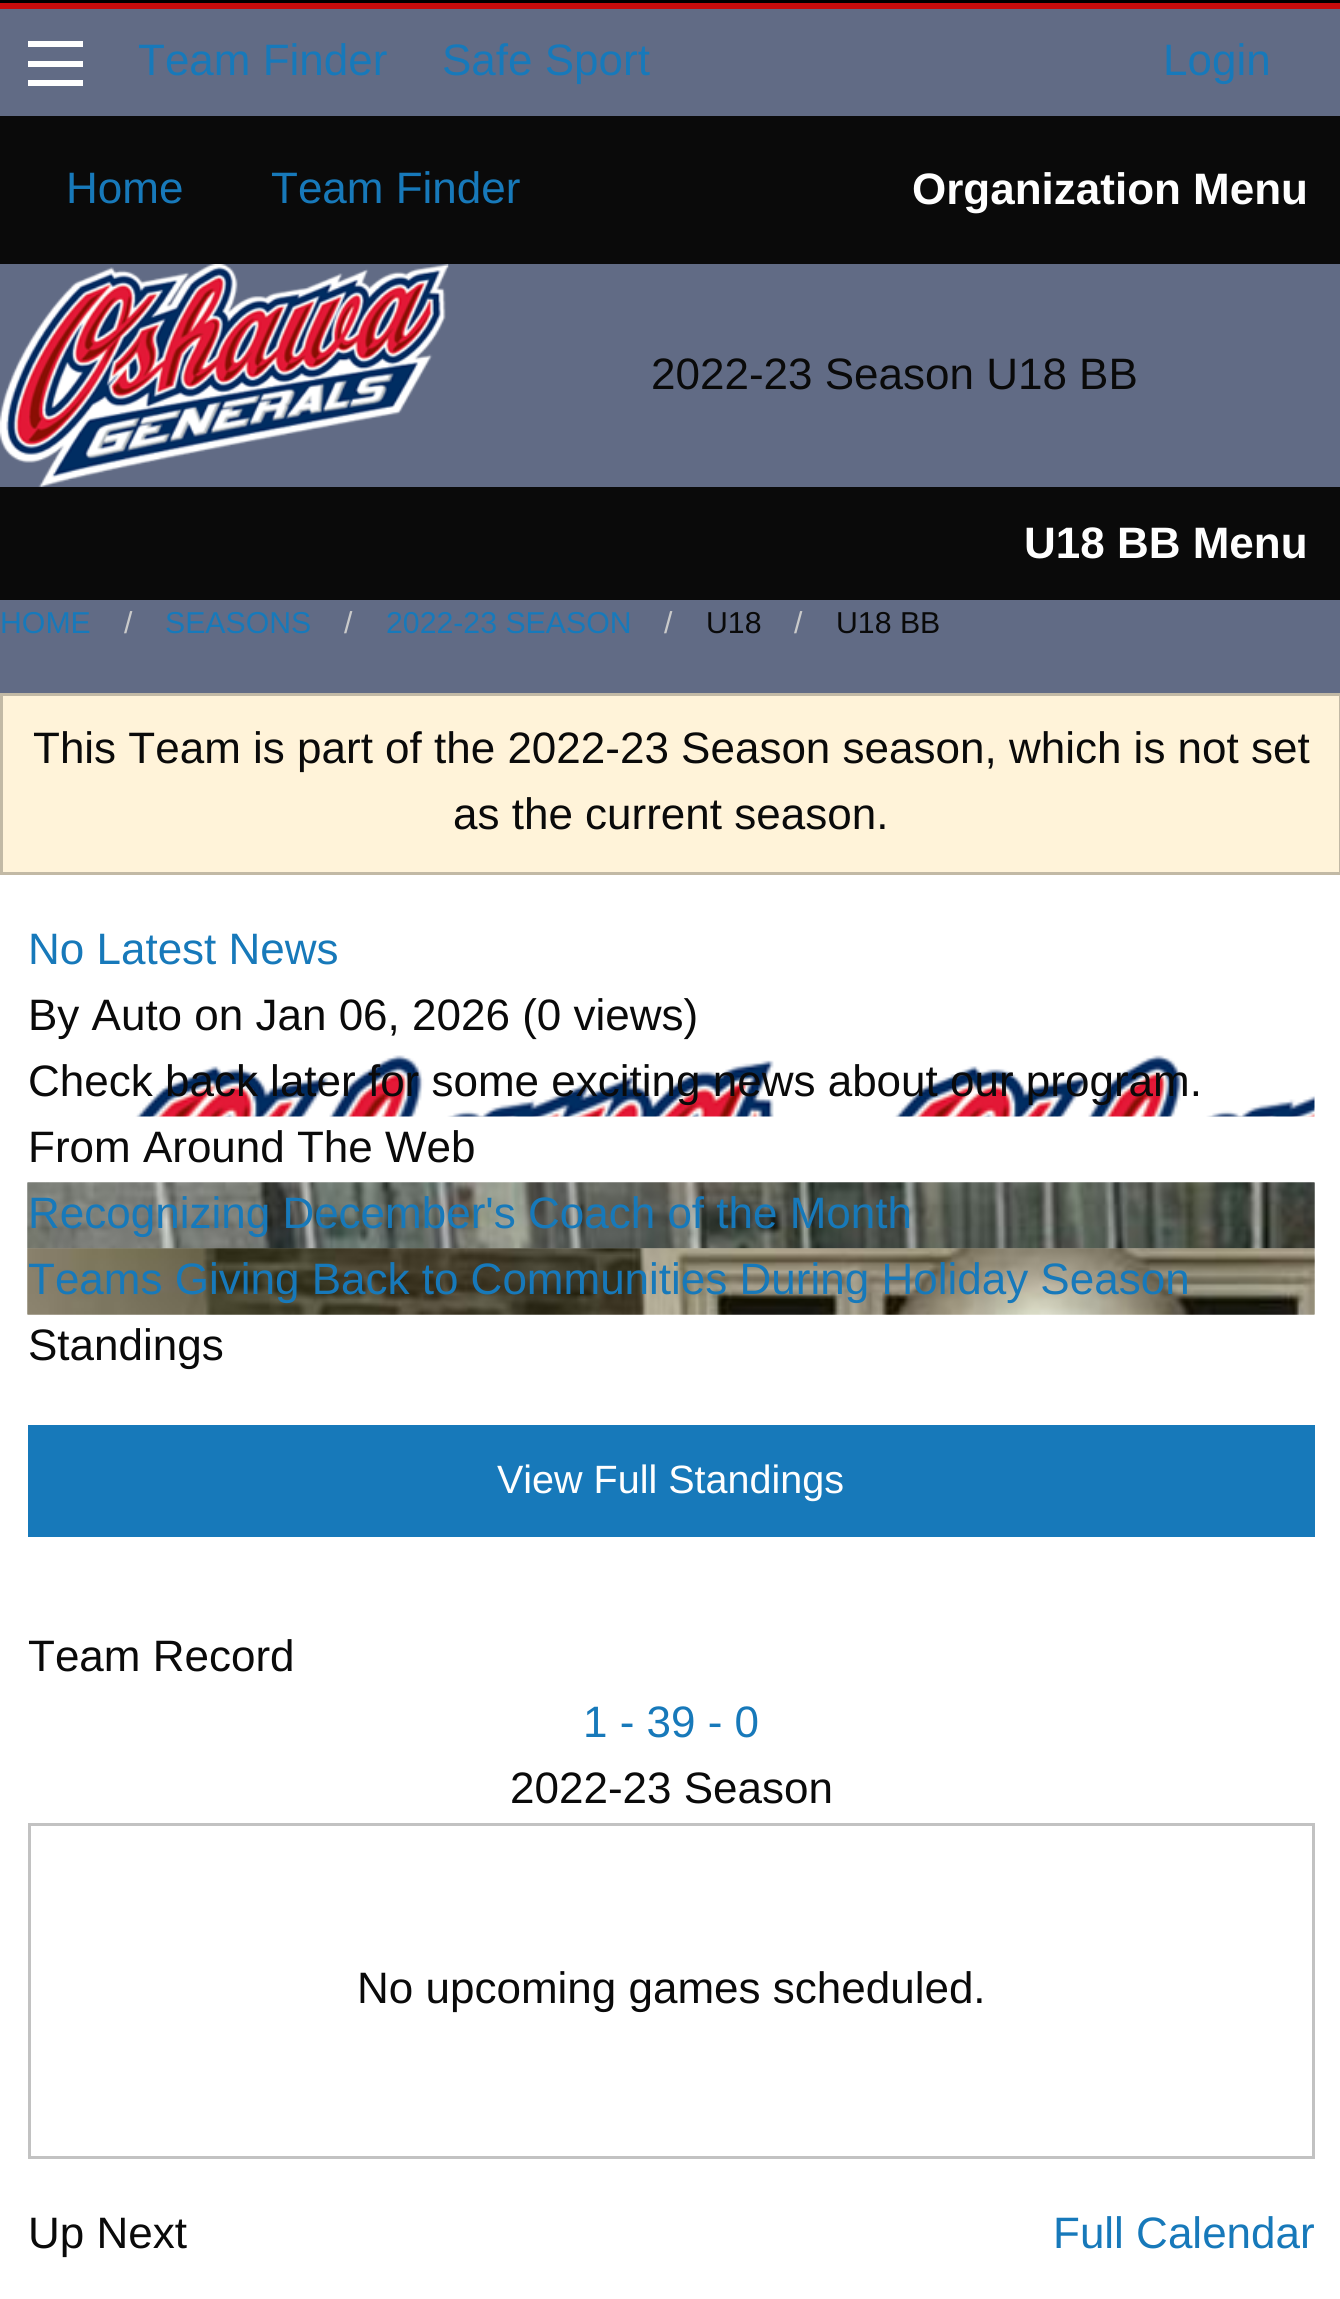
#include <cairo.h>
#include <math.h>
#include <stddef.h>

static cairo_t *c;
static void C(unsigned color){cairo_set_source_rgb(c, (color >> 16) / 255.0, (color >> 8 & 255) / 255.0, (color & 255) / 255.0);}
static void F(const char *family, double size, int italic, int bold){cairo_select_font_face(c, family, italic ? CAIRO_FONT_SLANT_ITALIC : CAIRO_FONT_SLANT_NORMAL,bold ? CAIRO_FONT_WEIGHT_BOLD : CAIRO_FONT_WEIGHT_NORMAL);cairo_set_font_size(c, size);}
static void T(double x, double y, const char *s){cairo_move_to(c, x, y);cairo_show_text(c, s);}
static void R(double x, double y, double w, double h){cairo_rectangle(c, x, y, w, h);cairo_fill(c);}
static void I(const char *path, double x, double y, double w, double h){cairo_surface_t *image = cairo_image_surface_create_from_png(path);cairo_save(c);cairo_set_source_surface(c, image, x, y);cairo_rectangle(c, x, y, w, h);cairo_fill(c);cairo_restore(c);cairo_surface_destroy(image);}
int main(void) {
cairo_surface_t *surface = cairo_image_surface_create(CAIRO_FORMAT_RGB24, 1340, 2299);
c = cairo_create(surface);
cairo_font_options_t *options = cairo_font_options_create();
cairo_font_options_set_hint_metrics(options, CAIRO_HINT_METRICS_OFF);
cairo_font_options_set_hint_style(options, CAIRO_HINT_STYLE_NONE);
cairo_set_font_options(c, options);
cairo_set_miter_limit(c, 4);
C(0x616b85);
cairo_paint(c);
C(0x000000);
R(0,0,1340,3);
C(0xc60c0c);
R(0,3,1340,6);
C(0xfefefe);
R(28,80,55,6);
R(28,61,55,6);
R(28,41,55,6);
F("Liberation Sans",44,0,0);
C(0x1779ba);
T(138,75,"Team Finder");
T(442,75,"Safe Sport");
T(1163,75,"Login");
C(0x0a0a0a);
R(0,116,1340,148);
C(0x1779ba);
T(66,203,"Home");
T(271,203,"Team Finder");
F("Liberation Sans",44,0,1);
C(0xfefefe);
T(912,204,"Organization Menu");
I("1.png",0,264,449,223);
F("Liberation Sans",44,0,0);
C(0x0a0a0a);
T(651,389,"2022-23 Season U18 BB");
R(0,487,1340,113);
F("Liberation Sans",44,0,1);
C(0xfefefe);
T(1024,558,"U18 BB Menu");
F("Liberation Sans",30.25,0,0);
C(0x1779ba);
T(0,633,"HOME");
C(0xcacaca);
T(124,633,"/");
C(0x1779ba);
T(165,633,"SEASONS");
C(0xcacaca);
T(344,633,"/");
C(0x1779ba);
T(386,633,"2022-23 SEASON");
C(0xcacaca);
T(664,633,"/");
C(0x0a0a0a);
T(706,633,"U18");
C(0xcacaca);
T(794,633,"/");
C(0x0a0a0a);
T(836,633,"U18 BB");
C(0xffffff);
R(0,875,1340,1424);
C(0xfff3d9);
cairo_rectangle(c,1.5,694.5,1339,179);
cairo_fill_preserve(c);
C(0xc2b9a5);
cairo_set_line_width(c,3);
cairo_stroke(c);
F("Liberation Sans",44,0,0);
C(0x0a0a0a);
T(33,763,"This Team is part of the 2022-23 Season season, which is not set");
T(453,829,"as the current season.");
C(0x1779ba);
T(28,964,"No Latest News");
C(0x0a0a0a);
T(28,1030,"By Auto on Jan 06, 2026 (0 views)");
I("2.png",135,1055,1180,62);
T(28,1096,"Check back later for some exciting news about our program.");
T(28,1162,"From Around The Web");
I("3.png",27,1182,1288,67);
I("4.png",27,1182,1288,67);
C(0x1779ba);
T(28,1228,"Recognizing December's Coach of the Month");
I("5.png",27,1248,1288,67);
I("6.png",27,1248,1288,67);
T(28,1294,"Teams Giving Back to Communities During Holiday Season");
C(0x0a0a0a);
T(28,1360,"Standings");
C(0x1779ba);
R(28,1425,1287,112);
F("Liberation Sans",39.5,0,0);
C(0xfefefe);
T(497,1493,"View Full Standings");
F("Liberation Sans",44,0,0);
C(0x0a0a0a);
T(28,1671,"Team Record");
C(0x1779ba);
T(583,1737,"1 - 39 - 0");
C(0x0a0a0a);
T(510,1803,"2022-23 Season");
cairo_rectangle(c,29.5,1824.5,1284,333);
C(0xc2c2c2);
cairo_stroke(c);
C(0x0a0a0a);
T(357,2003,"No upcoming games scheduled.");
T(28,2248,"Up Next");
C(0x1779ba);
T(1053,2248,"Full Calendar");
cairo_surface_write_to_png(surface, "o.png");
cairo_font_options_destroy(options);
cairo_destroy(c);
cairo_surface_destroy(surface);
return 0;
}
